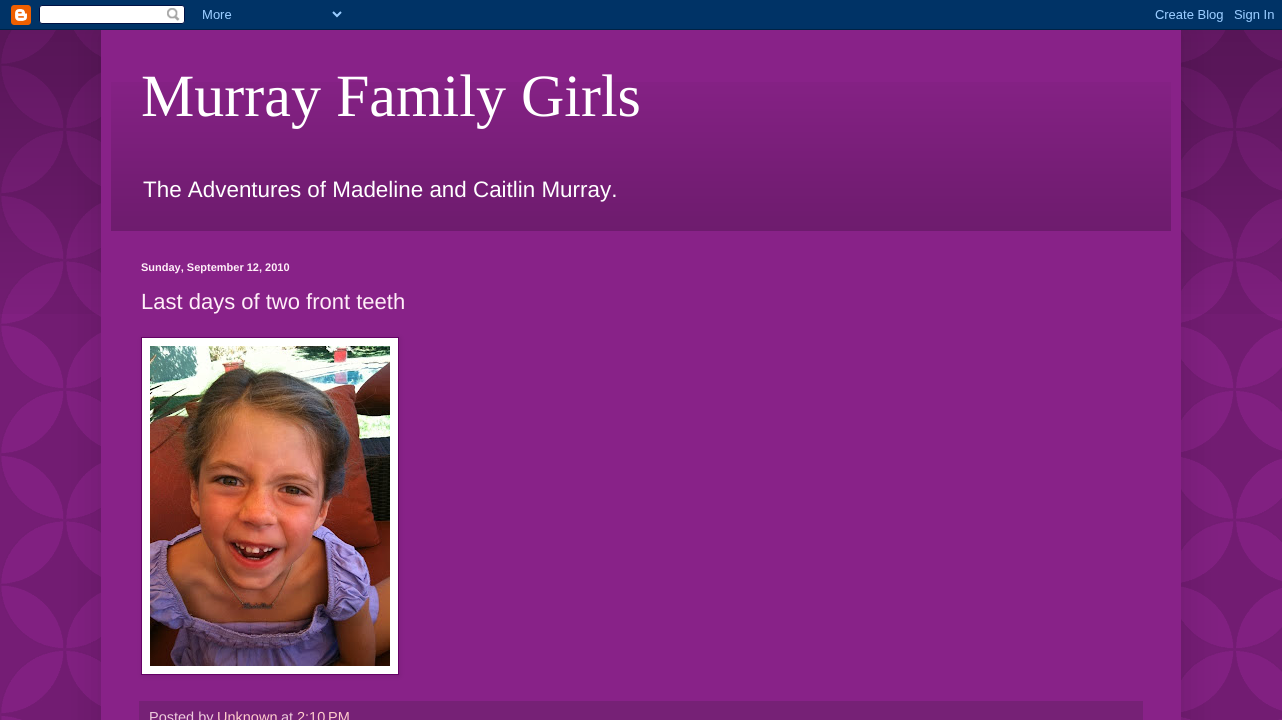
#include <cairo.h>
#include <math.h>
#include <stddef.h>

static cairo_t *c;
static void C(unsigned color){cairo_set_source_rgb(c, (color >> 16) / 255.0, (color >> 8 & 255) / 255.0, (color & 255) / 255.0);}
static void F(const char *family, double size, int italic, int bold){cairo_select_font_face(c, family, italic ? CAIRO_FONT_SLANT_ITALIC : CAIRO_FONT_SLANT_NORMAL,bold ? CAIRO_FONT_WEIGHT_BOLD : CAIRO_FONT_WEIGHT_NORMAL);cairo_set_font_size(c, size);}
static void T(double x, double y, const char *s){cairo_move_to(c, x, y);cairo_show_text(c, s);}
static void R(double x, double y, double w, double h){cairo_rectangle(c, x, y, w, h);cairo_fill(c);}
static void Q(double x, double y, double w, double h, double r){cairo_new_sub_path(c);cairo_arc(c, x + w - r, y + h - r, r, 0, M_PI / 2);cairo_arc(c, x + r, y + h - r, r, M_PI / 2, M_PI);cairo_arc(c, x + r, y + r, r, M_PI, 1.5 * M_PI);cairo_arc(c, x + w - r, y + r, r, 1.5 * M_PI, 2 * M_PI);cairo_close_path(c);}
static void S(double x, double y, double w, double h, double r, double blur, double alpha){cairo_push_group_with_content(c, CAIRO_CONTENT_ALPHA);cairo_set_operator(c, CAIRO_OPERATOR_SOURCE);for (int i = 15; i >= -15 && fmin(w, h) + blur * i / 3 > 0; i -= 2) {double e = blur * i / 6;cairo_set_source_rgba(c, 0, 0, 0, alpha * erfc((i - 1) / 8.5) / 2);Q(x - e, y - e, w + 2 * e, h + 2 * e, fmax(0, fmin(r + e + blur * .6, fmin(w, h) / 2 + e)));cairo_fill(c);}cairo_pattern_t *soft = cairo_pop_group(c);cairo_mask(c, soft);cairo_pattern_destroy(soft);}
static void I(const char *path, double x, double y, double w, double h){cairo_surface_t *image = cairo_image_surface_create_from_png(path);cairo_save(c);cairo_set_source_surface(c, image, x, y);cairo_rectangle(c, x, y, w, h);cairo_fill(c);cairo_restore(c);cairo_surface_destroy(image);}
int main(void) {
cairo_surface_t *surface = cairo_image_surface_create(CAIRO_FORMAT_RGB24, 1282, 720);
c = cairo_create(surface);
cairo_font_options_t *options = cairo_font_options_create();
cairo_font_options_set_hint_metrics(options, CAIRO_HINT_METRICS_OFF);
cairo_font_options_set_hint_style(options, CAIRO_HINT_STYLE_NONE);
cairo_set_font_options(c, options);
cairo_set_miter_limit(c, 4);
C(0x882288);
cairo_paint(c);
I("1.png",0,30,1282,690);
I("3.png",0,30,1282,284);
C(0x000000);
S(101,30,1080,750,0,20,.15);
I("2.png",0,0,1282,30);
C(0x882288);
R(101,30,1080,690);
I("4.png",111,82,1060,149);
F("Liberation Serif",60,0,0);
C(0xffffff);
T(141,116,"Murray Family Girls");
F("Liberation Sans",22.4,0,0);
T(143,197,"The Adventures of Madeline and Caitlin Murray.");
F("Liberation Sans",11,0,1);
C(0xffeef8);
T(141,271,"Sunday, September 12, 2010");
F("Liberation Sans",22,0,0);
T(141,309,"Last days of two front teeth");
C(0x000000);
S(142,338,258,338,0,2.5,.1);
C(0xffffff);
cairo_rectangle(c,141.5,337.5,257,337);
cairo_fill_preserve(c);
C(0x660066);
cairo_set_line_width(c,1);
cairo_stroke(c);
I("5.png",150,346,240,320);
C(0x762176);
R(139,701,1004,19);
F("Liberation Sans",14.5,0,0);
C(0xeeccdd);
T(149,722,"Posted by");
C(0xffcccc);
T(217,722,"Unknown");
C(0xeeccdd);
T(281,722,"at");
C(0xffcccc);
T(297,722,"2:10 PM");
cairo_surface_write_to_png(surface, "o.png");
cairo_font_options_destroy(options);
cairo_destroy(c);
cairo_surface_destroy(surface);
return 0;
}
